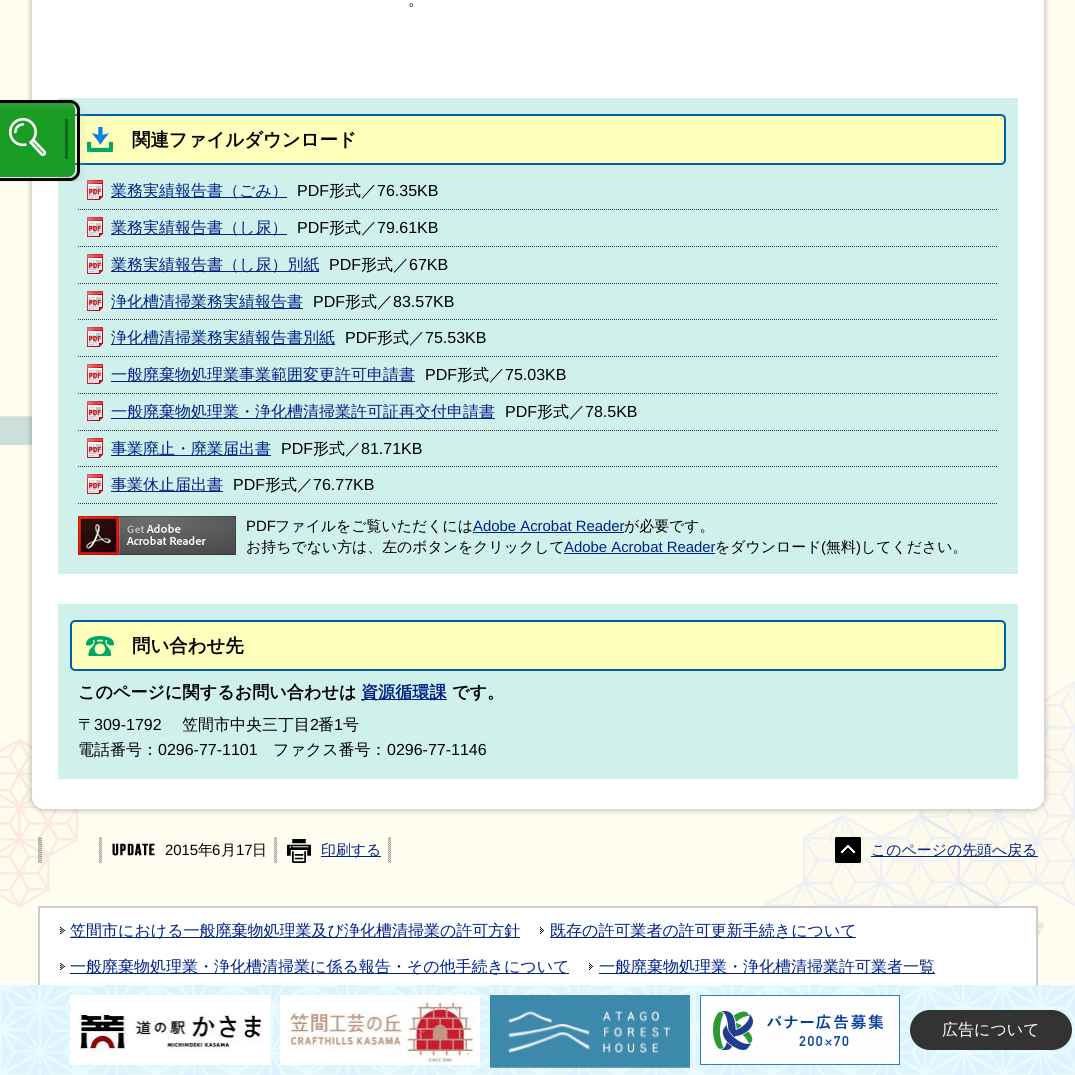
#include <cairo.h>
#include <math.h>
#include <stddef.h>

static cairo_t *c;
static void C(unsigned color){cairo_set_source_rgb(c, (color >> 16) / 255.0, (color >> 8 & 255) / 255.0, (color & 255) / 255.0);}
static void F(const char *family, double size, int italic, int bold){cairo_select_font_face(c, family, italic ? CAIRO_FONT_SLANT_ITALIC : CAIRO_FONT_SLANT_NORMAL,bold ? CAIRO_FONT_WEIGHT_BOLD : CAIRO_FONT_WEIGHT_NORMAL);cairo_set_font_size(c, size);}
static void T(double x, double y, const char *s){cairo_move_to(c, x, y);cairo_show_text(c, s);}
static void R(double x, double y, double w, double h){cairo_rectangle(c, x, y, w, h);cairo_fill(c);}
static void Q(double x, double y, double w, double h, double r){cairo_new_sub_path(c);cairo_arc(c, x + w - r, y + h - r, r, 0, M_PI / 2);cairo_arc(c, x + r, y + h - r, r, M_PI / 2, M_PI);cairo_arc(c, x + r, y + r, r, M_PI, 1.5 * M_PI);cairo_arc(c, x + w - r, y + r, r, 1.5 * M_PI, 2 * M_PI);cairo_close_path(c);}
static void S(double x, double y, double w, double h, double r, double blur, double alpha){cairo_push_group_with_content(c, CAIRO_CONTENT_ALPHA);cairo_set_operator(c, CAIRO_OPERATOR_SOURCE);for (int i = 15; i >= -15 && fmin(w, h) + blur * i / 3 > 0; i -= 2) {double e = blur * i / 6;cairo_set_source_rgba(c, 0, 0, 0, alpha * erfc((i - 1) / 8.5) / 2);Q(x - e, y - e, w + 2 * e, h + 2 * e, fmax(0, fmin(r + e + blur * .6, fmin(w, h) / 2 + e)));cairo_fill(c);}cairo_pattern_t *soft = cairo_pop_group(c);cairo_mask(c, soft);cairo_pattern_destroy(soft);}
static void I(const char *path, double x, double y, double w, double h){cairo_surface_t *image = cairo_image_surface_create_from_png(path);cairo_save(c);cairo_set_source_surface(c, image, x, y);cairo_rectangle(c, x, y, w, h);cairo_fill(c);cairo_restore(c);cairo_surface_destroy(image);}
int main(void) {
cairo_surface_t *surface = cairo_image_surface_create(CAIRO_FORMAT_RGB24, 1075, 1075);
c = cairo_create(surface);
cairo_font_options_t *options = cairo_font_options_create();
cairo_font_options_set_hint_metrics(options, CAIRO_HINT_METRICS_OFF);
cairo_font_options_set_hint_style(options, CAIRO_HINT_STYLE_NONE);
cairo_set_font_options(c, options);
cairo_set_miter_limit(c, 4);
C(0xfffdf0);
cairo_paint(c);
I("2.png",0,416,1075,519);
C(0x000000);
S(30,-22,1016,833,14,2.5,.2);
C(0xffffff);
Q(32,-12,1012,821,12);
cairo_fill(c);
C(0xd0f1eb);
R(58,98,960,476);
C(0xffffbb);
Q(70,114,936,51,5);
cairo_fill(c);
I("3.png",87,127,26,25);
Q(71,115,934,49,4);
C(0x005da9);
cairo_stroke(c);
I("1.png",0,100,87,82);
F("WenQuanYi Zen Hei Medium",16,0,0);
C(0x000000);
T(408,5,"。");
F("WenQuanYi Zen Hei",18.4,0,1);
T(132,146,"関連ファイルダウンロード");
I("4.png",87,180,16,20);
cairo_new_path(c);
cairo_move_to(c,78,209.5);
cairo_line_to(c,998,209.5);
C(0x333333);
cairo_set_line_width(c,1);
cairo_set_dash(c,(double[]){1,1},2,0);
cairo_stroke(c);
C(0x002288);
R(111,197,176,1);
F("WenQuanYi Zen Hei Medium",16,0,0);
T(111,196,"業務実績報告書（ごみ）");
F("Liberation Sans",16,0,0);
C(0x000000);
T(297,196,"PDF");
F("WenQuanYi Zen Hei Medium",16,0,0);
T(329,196,"形式／");
F("Liberation Sans",16,0,0);
T(377,196,"76.35KB");
I("4.png",87,217,16,20);
cairo_new_path(c);
cairo_move_to(c,78,246.5);
cairo_line_to(c,998,246.5);
C(0x333333);
cairo_stroke(c);
C(0x002288);
R(111,234,176,1);
F("WenQuanYi Zen Hei Medium",16,0,0);
T(111,233,"業務実績報告書（し尿）");
F("Liberation Sans",16,0,0);
C(0x000000);
T(297,233,"PDF");
F("WenQuanYi Zen Hei Medium",16,0,0);
T(329,233,"形式／");
F("Liberation Sans",16,0,0);
T(377,233,"79.61KB");
I("4.png",87,254,16,20);
cairo_new_path(c);
cairo_move_to(c,78,283.5);
cairo_line_to(c,998,283.5);
C(0x333333);
cairo_stroke(c);
C(0x002288);
R(111,271,208,1);
F("WenQuanYi Zen Hei Medium",16,0,0);
T(111,270,"業務実績報告書（し尿）別紙");
F("Liberation Sans",16,0,0);
C(0x000000);
T(329,270,"PDF");
F("WenQuanYi Zen Hei Medium",16,0,0);
T(361,270,"形式／");
F("Liberation Sans",16,0,0);
T(409,270,"67KB");
I("4.png",87,291,16,20);
cairo_new_path(c);
cairo_move_to(c,78,319.5);
cairo_line_to(c,998,319.5);
C(0x333333);
cairo_stroke(c);
C(0x002288);
R(111,308,192,1);
F("WenQuanYi Zen Hei Medium",16,0,0);
T(111,307,"浄化槽清掃業務実績報告書");
F("Liberation Sans",16,0,0);
C(0x000000);
T(313,307,"PDF");
F("WenQuanYi Zen Hei Medium",16,0,0);
T(345,307,"形式／");
F("Liberation Sans",16,0,0);
T(393,307,"83.57KB");
I("4.png",87,327,16,20);
cairo_new_path(c);
cairo_move_to(c,78,356.5);
cairo_line_to(c,998,356.5);
C(0x333333);
cairo_stroke(c);
C(0x002288);
R(111,344,224,1);
F("WenQuanYi Zen Hei Medium",16,0,0);
T(111,343,"浄化槽清掃業務実績報告書別紙");
F("Liberation Sans",16,0,0);
C(0x000000);
T(345,343,"PDF");
F("WenQuanYi Zen Hei Medium",16,0,0);
T(377,343,"形式／");
F("Liberation Sans",16,0,0);
T(425,343,"75.53KB");
I("4.png",87,364,16,20);
cairo_new_path(c);
cairo_move_to(c,78,393.5);
cairo_line_to(c,998,393.5);
C(0x333333);
cairo_stroke(c);
C(0x002288);
R(111,381,304,1);
F("WenQuanYi Zen Hei Medium",16,0,0);
T(111,380,"一般廃棄物処理業事業範囲変更許可申請書");
F("Liberation Sans",16,0,0);
C(0x000000);
T(425,380,"PDF");
F("WenQuanYi Zen Hei Medium",16,0,0);
T(457,380,"形式／");
F("Liberation Sans",16,0,0);
T(505,380,"75.03KB");
I("4.png",87,401,16,20);
cairo_new_path(c);
cairo_move_to(c,78,430.5);
cairo_line_to(c,998,430.5);
C(0x333333);
cairo_stroke(c);
C(0x002288);
R(111,418,384,1);
F("WenQuanYi Zen Hei Medium",16,0,0);
T(111,417,"一般廃棄物処理業・浄化槽清掃業許可証再交付申請書");
F("Liberation Sans",16,0,0);
C(0x000000);
T(505,417,"PDF");
F("WenQuanYi Zen Hei Medium",16,0,0);
T(537,417,"形式／");
F("Liberation Sans",16,0,0);
T(585,417,"78.5KB");
I("4.png",87,438,16,20);
cairo_new_path(c);
cairo_move_to(c,78,466.5);
cairo_line_to(c,998,466.5);
C(0x333333);
cairo_stroke(c);
C(0x002288);
R(111,455,160,1);
F("WenQuanYi Zen Hei Medium",16,0,0);
T(111,454,"事業廃止・廃業届出書");
F("Liberation Sans",16,0,0);
C(0x000000);
T(281,454,"PDF");
F("WenQuanYi Zen Hei Medium",16,0,0);
T(313,454,"形式／");
F("Liberation Sans",16,0,0);
T(361,454,"81.71KB");
I("4.png",87,474,16,20);
cairo_new_path(c);
cairo_move_to(c,78,503.5);
cairo_line_to(c,998,503.5);
C(0x333333);
cairo_stroke(c);
C(0x002288);
R(111,491,112,1);
F("WenQuanYi Zen Hei Medium",16,0,0);
T(111,490,"事業休止届出書");
F("Liberation Sans",16,0,0);
C(0x000000);
T(233,490,"PDF");
F("WenQuanYi Zen Hei Medium",16,0,0);
T(265,490,"形式／");
F("Liberation Sans",16,0,0);
T(313,490,"76.77KB");
I("5.png",78,516,158,39);
F("Liberation Sans",14.9,0,0);
T(246,531,"PDF");
F("WenQuanYi Zen Hei Medium",14.9,0,0);
T(275,531,"ファイルをご覧いただくには");
F("Liberation Sans",14.9,0,0);
C(0x002288);
T(473,531,"Adobe Acrobat Reader");
R(473,532,151,1);
F("WenQuanYi Zen Hei Medium",14.9,0,0);
C(0x000000);
T(624,531,"が必要です。");
T(246,552,"お持ちでない方は、左のボタンをクリックして");
F("Liberation Sans",14.9,0,0);
C(0x002288);
T(564,552,"Adobe Acrobat Reader");
R(564,553,151,1);
F("WenQuanYi Zen Hei Medium",14.9,0,0);
C(0x000000);
T(715,552,"をダウンロード");
F("Liberation Sans",14.9,0,0);
T(821,552,"(");
F("WenQuanYi Zen Hei Medium",14.9,0,0);
T(826,552,"無料");
F("Liberation Sans",14.9,0,0);
T(856,552,")");
F("WenQuanYi Zen Hei Medium",14.9,0,0);
T(861,552,"してください。");
C(0xd0f1eb);
R(58,604,960,175);
C(0xffffbb);
Q(70,620,936,51,5);
cairo_fill(c);
I("6.png",86,636,28,20);
Q(71,621,934,49,4);
C(0x005da9);
cairo_set_line_width(c,2);
cairo_set_dash(c,NULL,0,0);
cairo_stroke(c);
F("WenQuanYi Zen Hei",18.4,0,1);
C(0x000000);
T(132,652,"問い合わせ先");
F("WenQuanYi Zen Hei",17.1,0,1);
T(78,698,"このページに関するお問い合わせは");
C(0x002288);
R(361,699,86,1);
T(361,698,"資源循環課");
C(0x000000);
T(452,698,"です。");
F("WenQuanYi Zen Hei Medium",16,0,0);
T(78,730,"〒");
F("Liberation Sans",16,0,0);
T(94,730,"309-1792");
F("WenQuanYi Zen Hei Medium",16,0,0);
T(182,730,"笠間市中央三丁目");
F("Liberation Sans",16,0,0);
T(310,730,"2");
F("WenQuanYi Zen Hei Medium",16,0,0);
T(318,730,"番");
F("Liberation Sans",16,0,0);
T(334,730,"1");
F("WenQuanYi Zen Hei Medium",16,0,0);
T(343,730,"号");
T(78,755,"電話番号：");
F("Liberation Sans",16,0,0);
T(158,755,"0296-77-1101");
F("WenQuanYi Zen Hei Medium",16,0,0);
T(273,755,"ファクス番号：");
F("Liberation Sans",16,0,0);
T(387,755,"0296-77-1146");
I("7.png",38,837,4,26);
I("8.png",99,837,3,26);
I("8.png",274,837,3,26);
I("9.png",112,843,43,13);
F("Liberation Sans",14.9,0,0);
T(165,855,"2015");
F("WenQuanYi Zen Hei Medium",14.9,0,0);
T(198,855,"年");
F("Liberation Sans",14.9,0,0);
T(212,855,"6");
F("WenQuanYi Zen Hei Medium",14.9,0,0);
T(221,855,"月");
F("Liberation Sans",14.9,0,0);
T(236,855,"17");
F("WenQuanYi Zen Hei Medium",14.9,0,0);
T(252,855,"日");
I("8.png",388,837,3,26);
I("10.png",287,839,24,24);
C(0x002288);
R(321,856,60,1);
T(321,855,"印刷する");
I("11.png",835,837,26,26);
R(871,856,167,1);
T(871,855,"このページの先頭へ戻る");
C(0xffffff);
R(40,908,996,77);
cairo_rectangle(c,39,907,998,84);
C(0xcccccc);
cairo_stroke(c);
I("12.png",60,927,5,7);
C(0x002288);
R(70,937,450,1);
F("WenQuanYi Zen Hei Medium",16,0,0);
T(70,936,"笠間市における一般廃棄物処理業及び浄化槽清掃業の許可方針");
I("13.png",540,927,4,7);
R(550,937,306,1);
T(550,936,"既存の許可業者の許可更新手続きについて");
I("12.png",60,963,5,7);
R(70,973,499,1);
T(70,972,"一般廃棄物処理業・浄化槽清掃業に係る報告・その他手続きについて");
I("13.png",589,963,4,7);
R(599,973,336,1);
T(599,972,"一般廃棄物処理業・浄化槽清掃業許可業者一覧");
I("14.png",0,985,1075,90);
I("15.png",70,995,200,70);
I("16.png",280,995,200,70);
I("17.png",490,995,200,73);
I("18.png",700,995,200,70);
C(0x333333);
Q(910,1010,162,40,20);
cairo_fill(c);
C(0xffffff);
T(942,1035,"広告について");
cairo_surface_write_to_png(surface, "o.png");
cairo_font_options_destroy(options);
cairo_destroy(c);
cairo_surface_destroy(surface);
return 0;
}
